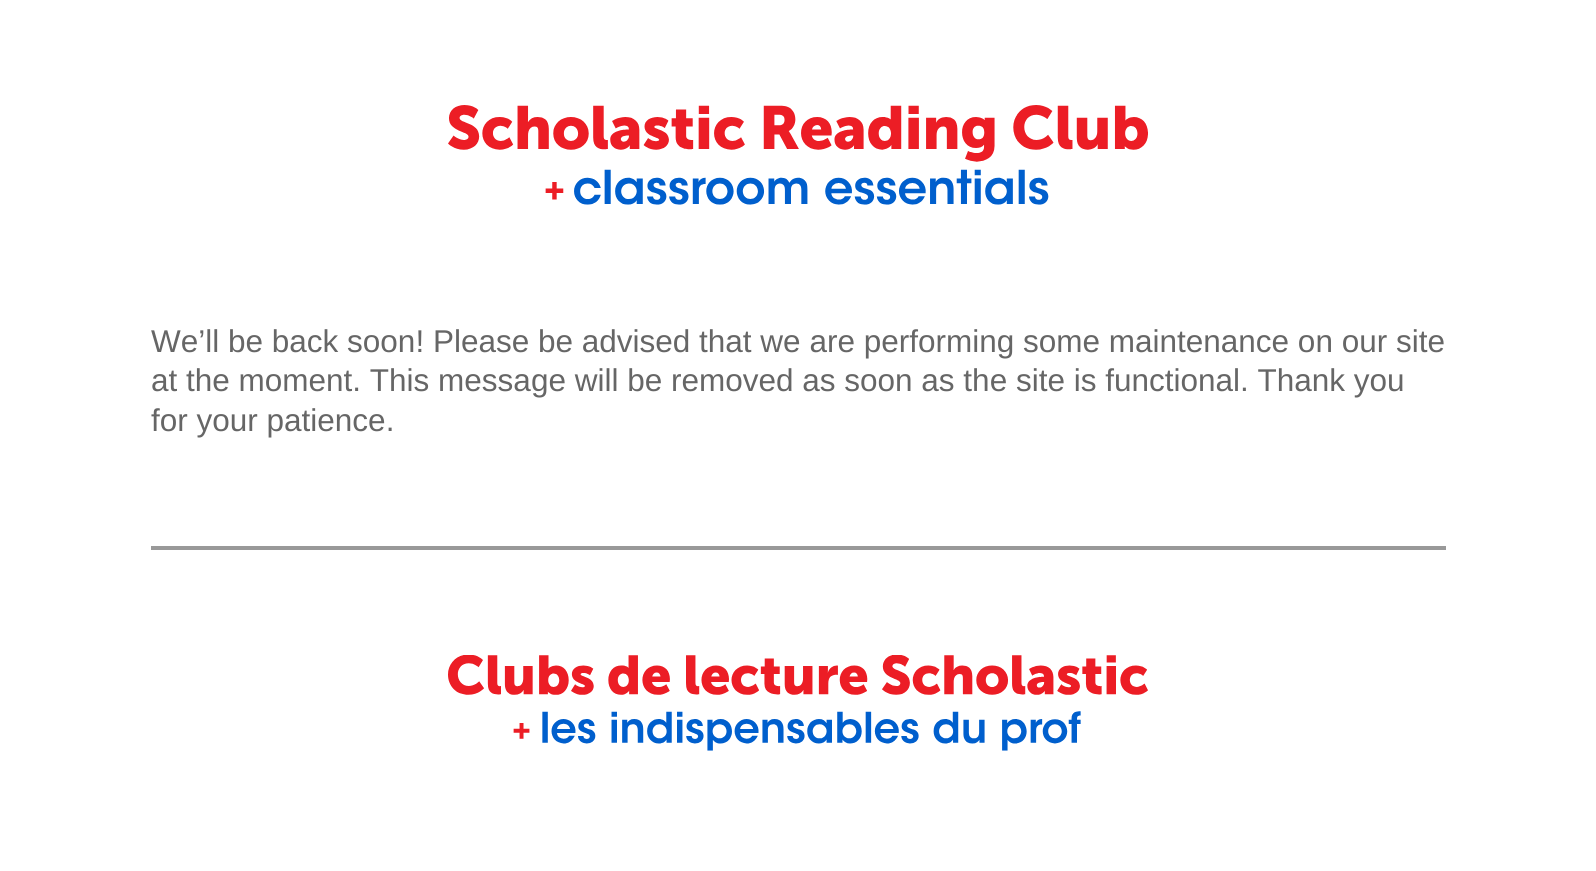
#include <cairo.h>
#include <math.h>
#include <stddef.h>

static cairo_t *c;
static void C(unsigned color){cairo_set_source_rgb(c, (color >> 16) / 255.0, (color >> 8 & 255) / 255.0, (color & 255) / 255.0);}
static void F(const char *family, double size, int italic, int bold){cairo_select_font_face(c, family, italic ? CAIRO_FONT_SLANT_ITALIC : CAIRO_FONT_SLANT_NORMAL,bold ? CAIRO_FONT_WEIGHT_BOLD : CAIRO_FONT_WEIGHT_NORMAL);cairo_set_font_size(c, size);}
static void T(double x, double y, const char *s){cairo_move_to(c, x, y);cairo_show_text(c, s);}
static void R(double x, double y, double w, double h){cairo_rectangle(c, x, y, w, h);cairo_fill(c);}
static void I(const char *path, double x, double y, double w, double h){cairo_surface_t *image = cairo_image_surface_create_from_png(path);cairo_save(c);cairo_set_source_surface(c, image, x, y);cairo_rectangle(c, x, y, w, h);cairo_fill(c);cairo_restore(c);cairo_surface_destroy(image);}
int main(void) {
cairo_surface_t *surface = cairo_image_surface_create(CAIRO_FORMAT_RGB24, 1596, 871);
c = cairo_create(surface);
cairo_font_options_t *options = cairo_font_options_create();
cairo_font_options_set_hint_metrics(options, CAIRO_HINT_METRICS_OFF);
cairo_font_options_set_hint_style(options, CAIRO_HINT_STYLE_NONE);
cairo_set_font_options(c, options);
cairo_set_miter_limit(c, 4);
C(0xffffff);
cairo_paint(c);
I("1.png",448,105,700,100);
F("Liberation Sans",31.5,0,0);
C(0x666666);
T(151,352,"We’ll be back soon! Please be advised that we are performing some maintenance on our site");
T(151,391,"at the moment. This message will be removed as soon as the site is functional. Thank you");
T(151,431,"for your patience.");
C(0x999999);
R(151,546,1295,4);
I("2.png",448,655,700,96);
cairo_surface_write_to_png(surface, "o.png");
cairo_font_options_destroy(options);
cairo_destroy(c);
cairo_surface_destroy(surface);
return 0;
}
